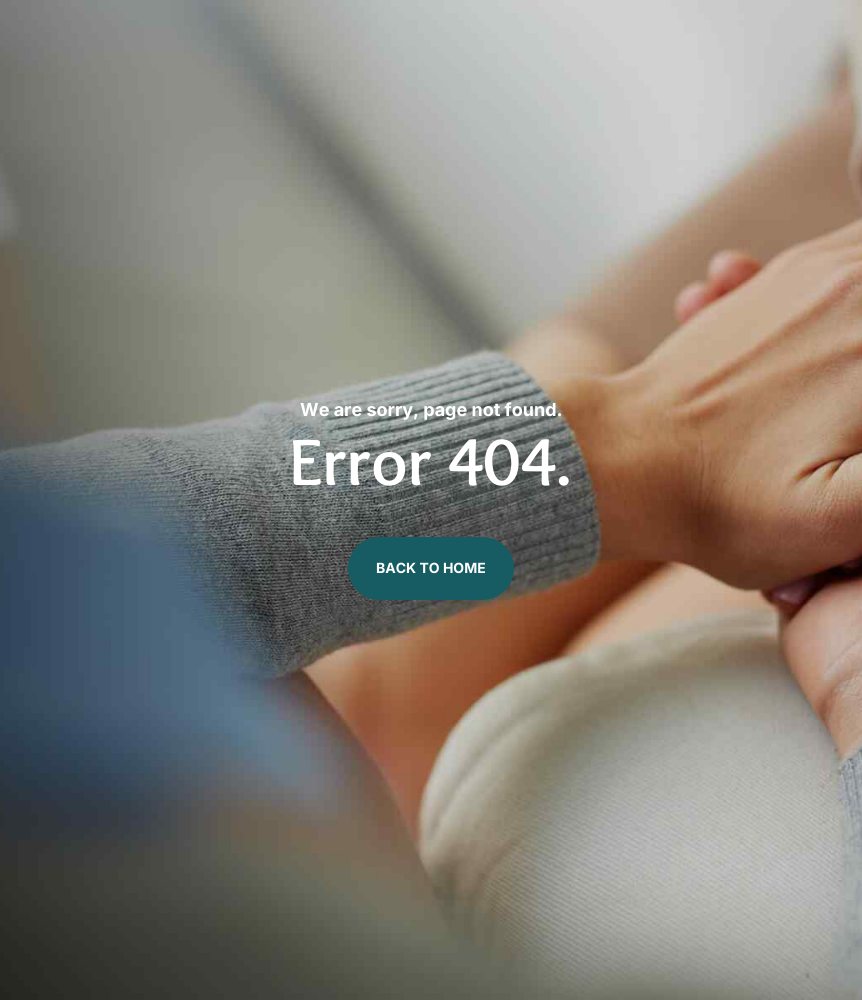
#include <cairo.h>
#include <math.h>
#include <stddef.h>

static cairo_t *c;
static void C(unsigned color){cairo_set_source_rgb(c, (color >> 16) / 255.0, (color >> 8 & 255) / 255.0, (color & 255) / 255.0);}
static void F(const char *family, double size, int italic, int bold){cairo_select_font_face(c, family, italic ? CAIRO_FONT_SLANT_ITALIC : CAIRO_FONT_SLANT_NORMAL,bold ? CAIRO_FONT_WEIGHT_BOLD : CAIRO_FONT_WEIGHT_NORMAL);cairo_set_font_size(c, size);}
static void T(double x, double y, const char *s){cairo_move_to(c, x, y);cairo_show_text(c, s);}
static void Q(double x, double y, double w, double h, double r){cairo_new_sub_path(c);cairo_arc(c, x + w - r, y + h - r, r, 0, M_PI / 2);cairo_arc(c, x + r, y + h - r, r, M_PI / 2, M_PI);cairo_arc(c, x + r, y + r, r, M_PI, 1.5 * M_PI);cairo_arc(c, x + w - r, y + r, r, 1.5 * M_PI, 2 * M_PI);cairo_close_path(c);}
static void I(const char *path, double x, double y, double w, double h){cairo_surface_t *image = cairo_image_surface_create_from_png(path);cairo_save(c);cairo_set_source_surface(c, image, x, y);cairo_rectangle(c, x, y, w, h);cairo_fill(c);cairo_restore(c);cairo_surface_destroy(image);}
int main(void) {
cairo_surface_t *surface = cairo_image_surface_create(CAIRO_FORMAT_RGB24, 862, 1000);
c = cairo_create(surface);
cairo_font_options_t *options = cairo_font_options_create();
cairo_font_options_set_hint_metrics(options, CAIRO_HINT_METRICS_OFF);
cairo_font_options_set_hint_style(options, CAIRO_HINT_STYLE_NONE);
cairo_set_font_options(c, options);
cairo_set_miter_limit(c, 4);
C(0xffffff);
cairo_paint(c);
I("1.png",0,0,862,1000);
F("Inter",18,0,1);
C(0xffffff);
T(300,416,"We are sorry, page not found.");
F("Overlock",68,0,1);
T(289,485,"Error 404.");
C(0x175c62);
Q(348,537,166,63,31.5);
cairo_fill(c);
F("Inter",14,0,1);
C(0xffffff);
T(376,573,"BACK TO HOME");
cairo_surface_write_to_png(surface, "o.png");
cairo_font_options_destroy(options);
cairo_destroy(c);
cairo_surface_destroy(surface);
return 0;
}
